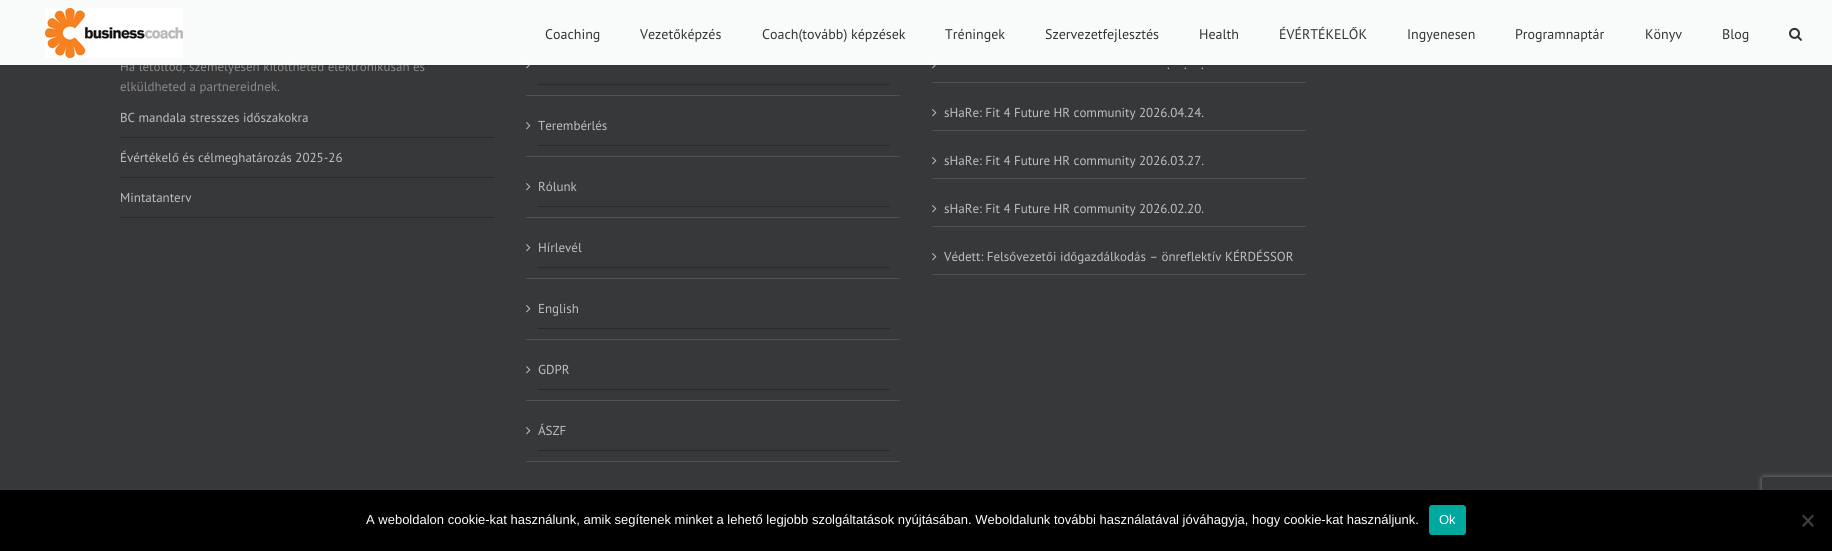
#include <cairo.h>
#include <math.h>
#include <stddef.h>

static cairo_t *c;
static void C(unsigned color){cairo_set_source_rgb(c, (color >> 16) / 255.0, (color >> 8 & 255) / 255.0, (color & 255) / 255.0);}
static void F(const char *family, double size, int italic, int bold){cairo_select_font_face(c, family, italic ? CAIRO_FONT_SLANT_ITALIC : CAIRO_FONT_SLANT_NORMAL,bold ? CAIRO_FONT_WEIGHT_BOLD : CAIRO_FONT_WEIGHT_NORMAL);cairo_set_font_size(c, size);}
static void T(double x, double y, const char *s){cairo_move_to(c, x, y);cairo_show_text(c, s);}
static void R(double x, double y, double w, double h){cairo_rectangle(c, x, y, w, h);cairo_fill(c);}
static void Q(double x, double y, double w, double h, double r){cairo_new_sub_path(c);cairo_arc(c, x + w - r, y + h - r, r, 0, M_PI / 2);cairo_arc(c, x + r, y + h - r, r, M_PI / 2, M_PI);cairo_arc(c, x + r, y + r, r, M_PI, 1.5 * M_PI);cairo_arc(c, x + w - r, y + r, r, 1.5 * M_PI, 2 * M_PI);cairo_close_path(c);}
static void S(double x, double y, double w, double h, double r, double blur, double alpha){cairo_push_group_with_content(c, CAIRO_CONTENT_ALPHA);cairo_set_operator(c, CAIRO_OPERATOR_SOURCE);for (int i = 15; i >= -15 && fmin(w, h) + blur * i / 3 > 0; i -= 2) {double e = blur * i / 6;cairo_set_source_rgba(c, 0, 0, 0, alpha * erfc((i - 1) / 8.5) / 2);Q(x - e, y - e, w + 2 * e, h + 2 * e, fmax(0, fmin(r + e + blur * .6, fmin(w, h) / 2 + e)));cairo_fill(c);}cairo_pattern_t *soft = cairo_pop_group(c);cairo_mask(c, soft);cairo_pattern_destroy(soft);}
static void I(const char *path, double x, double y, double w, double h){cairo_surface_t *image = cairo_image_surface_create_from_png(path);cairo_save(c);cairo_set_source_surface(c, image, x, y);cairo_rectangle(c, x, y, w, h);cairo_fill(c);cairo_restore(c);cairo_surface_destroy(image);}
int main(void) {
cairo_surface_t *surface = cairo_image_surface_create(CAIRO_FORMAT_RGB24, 1832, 551);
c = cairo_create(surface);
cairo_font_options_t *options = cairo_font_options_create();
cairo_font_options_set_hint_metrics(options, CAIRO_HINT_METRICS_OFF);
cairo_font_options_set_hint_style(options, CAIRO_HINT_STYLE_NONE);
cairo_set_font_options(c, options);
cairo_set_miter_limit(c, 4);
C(0x363839);
cairo_paint(c);
I("3.png",526,61,5,8);
I("3.png",932,61,5,8);
cairo_save(c);
cairo_rectangle(c,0,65,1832,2);
cairo_clip(c);
C(0x000000);
S(0,1,1832,65,0,1.5,.12);
cairo_restore(c);
F("PT Sans",13,0,0);
C(0x8c8989);
T(120,71,"Ha letöltöd, személyesen kitöltheted elektronikusan és");
cairo_set_source_rgba(c,1,1,1,0.97);
R(0,0,1832,65);
I("1.png",45,8,138,50);
F("PT Sans",14,0,0);
C(0x333333);
T(545,39,"Coaching");
T(640,39,"Vezetőképzés");
T(762,39,"Coach(tovább) képzések");
T(945,39,"Tréningek");
T(1045,39,"Szervezetfejlesztés");
T(1199,39,"Health");
T(1279,39,"ÉVÉRTÉKELŐK");
T(1407,39,"Ingyenesen");
T(1515,39,"Programnaptár");
T(1645,39,"Könyv");
T(1722,39,"Blog");
I("2.png",1789,27,13,14);
F("PT Sans",13,0,0);
C(0x8c8989);
T(120,91,"elküldheted a partnereidnek.");
C(0x282a2b);
R(120,137,374,1);
C(0xbfbfbf);
T(120,122,"BC mandala stresszes időszakokra");
C(0x282a2b);
R(120,177,374,1);
C(0xbfbfbf);
T(120,162,"Évértékelő és célmeghatározás 2025-26");
C(0x282a2b);
R(120,217,374,1);
C(0xbfbfbf);
T(120,202,"Mintatanterv");
C(0x505152);
R(526,95,374,1);
C(0x282a2b);
R(538,84,352,1);
C(0x505152);
R(526,156,374,1);
C(0x282a2b);
R(538,145,352,1);
I("3.png",526,122,5,8);
C(0xbfbfbf);
T(538,130,"Terembérlés");
C(0x505152);
R(526,217,374,1);
C(0x282a2b);
R(538,206,352,1);
I("3.png",526,183,5,8);
C(0xbfbfbf);
T(538,191,"Rólunk");
C(0x505152);
R(526,278,374,1);
C(0x282a2b);
R(538,267,352,1);
I("3.png",526,244,5,8);
C(0xbfbfbf);
T(538,252,"Hírlevél");
C(0x505152);
R(526,339,374,1);
C(0x282a2b);
R(538,328,352,1);
I("3.png",526,305,5,8);
C(0xbfbfbf);
T(538,313,"English");
C(0x505152);
R(526,400,374,1);
C(0x282a2b);
R(538,389,352,1);
I("3.png",526,366,5,8);
C(0xbfbfbf);
T(538,374,"GDPR");
C(0x505152);
R(526,461,374,1);
C(0x282a2b);
R(538,450,352,1);
I("3.png",526,427,5,8);
C(0xbfbfbf);
T(538,435,"ÁSZF");
C(0x505152);
R(932,82,374,1);
C(0xbfbfbf);
T(1167,69,".");
T(1184,69,".");
T(1201,69,".");
C(0x505152);
R(932,130,374,1);
I("3.png",932,109,5,8);
C(0xbfbfbf);
T(944,117,"sHaRe: Fit 4 Future HR community 2026.04.24.");
C(0x505152);
R(932,178,374,1);
I("3.png",932,157,5,8);
C(0xbfbfbf);
T(944,165,"sHaRe: Fit 4 Future HR community 2026.03.27.");
C(0x505152);
R(932,226,374,1);
I("3.png",932,205,5,8);
C(0xbfbfbf);
T(944,213,"sHaRe: Fit 4 Future HR community 2026.02.20.");
C(0x505152);
R(932,274,374,1);
I("3.png",932,253,5,8);
C(0xbfbfbf);
T(944,261,"Védett: Felsővezetői időgazdálkodás – önreflektív KÉRDÉSSOR");
cairo_save(c);
cairo_set_fill_rule(c,CAIRO_FILL_RULE_EVEN_ODD);
cairo_new_path(c);
cairo_move_to(c,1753,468);
cairo_line_to(c,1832,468);
cairo_line_to(c,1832,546);
cairo_line_to(c,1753,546);
cairo_close_path(c);
cairo_move_to(c,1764,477);
cairo_line_to(c,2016,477);
cairo_curve_to(c,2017,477,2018,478,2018,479);
cairo_line_to(c,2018,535);
cairo_curve_to(c,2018,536,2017,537,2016,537);
cairo_line_to(c,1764,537);
cairo_curve_to(c,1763,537,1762,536,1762,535);
cairo_line_to(c,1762,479);
cairo_curve_to(c,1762,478,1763,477,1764,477);
cairo_close_path(c);
cairo_clip(c);
C(0x808080);
S(1762,477,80,60,2,2.5,1);
cairo_restore(c);
C(0x000000);
R(0,490,1832,61);
F("Liberation Sans",13,0,0);
C(0xffffff);
T(366,524,"A weboldalon cookie-kat használunk, amik segítenek minket a lehető legjobb szolgáltatások nyújtásában. Weboldalunk további használatával jóváhagyja, hogy cookie-kat használjunk.");
C(0x00a99d);
Q(1429,505,37,30,3);
cairo_fill(c);
C(0xffffff);
T(1439,524,"Ok");
C(0x404040);
cairo_new_path(c);
cairo_move_to(c,1812.5,514.5);
cairo_line_to(c,1814,516);
cairo_line_to(c,1803.5,527);
cairo_line_to(c,1802,525.5);
cairo_close_path(c);
cairo_fill(c);
cairo_new_path(c);
cairo_move_to(c,1802,516);
cairo_line_to(c,1803.5,514.5);
cairo_line_to(c,1814,525.5);
cairo_line_to(c,1812.5,527);
cairo_close_path(c);
cairo_fill(c);
cairo_surface_write_to_png(surface, "o.png");
cairo_font_options_destroy(options);
cairo_destroy(c);
cairo_surface_destroy(surface);
return 0;
}
